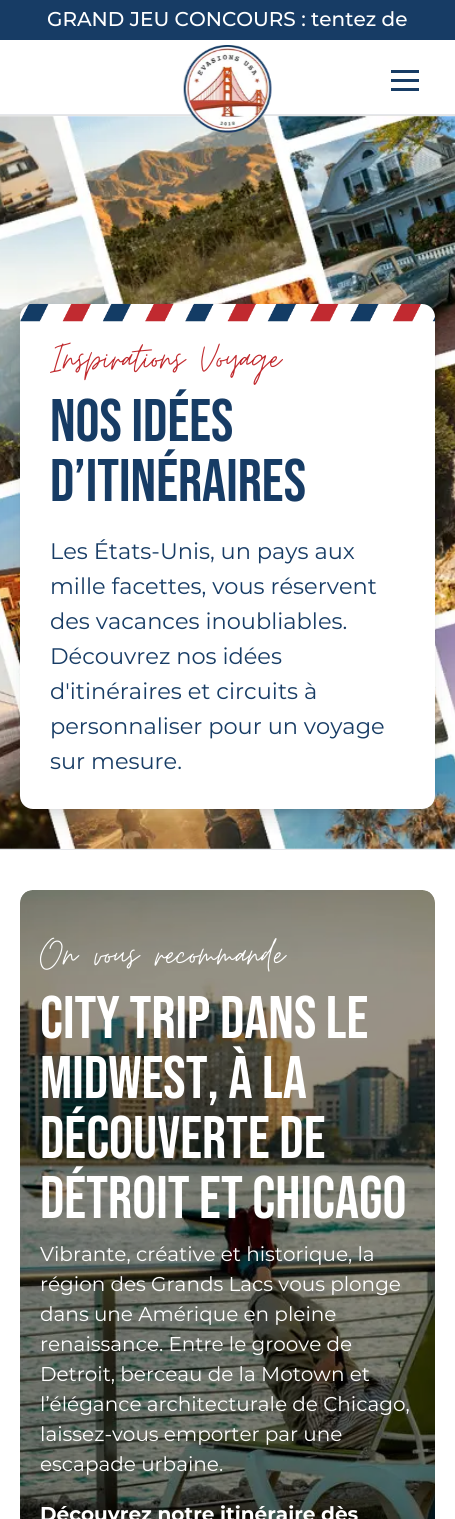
#include <cairo.h>
#include <math.h>
#include <stddef.h>

static cairo_t *c;
static void C(unsigned color){cairo_set_source_rgb(c, (color >> 16) / 255.0, (color >> 8 & 255) / 255.0, (color & 255) / 255.0);}
static void F(const char *family, double size, int italic, int bold){cairo_select_font_face(c, family, italic ? CAIRO_FONT_SLANT_ITALIC : CAIRO_FONT_SLANT_NORMAL,bold ? CAIRO_FONT_WEIGHT_BOLD : CAIRO_FONT_WEIGHT_NORMAL);cairo_set_font_size(c, size);}
static void T(double x, double y, const char *s){cairo_move_to(c, x, y);cairo_show_text(c, s);}
static void R(double x, double y, double w, double h){cairo_rectangle(c, x, y, w, h);cairo_fill(c);}
static void Q(double x, double y, double w, double h, double r){cairo_new_sub_path(c);cairo_arc(c, x + w - r, y + h - r, r, 0, M_PI / 2);cairo_arc(c, x + r, y + h - r, r, M_PI / 2, M_PI);cairo_arc(c, x + r, y + r, r, M_PI, 1.5 * M_PI);cairo_arc(c, x + w - r, y + r, r, 1.5 * M_PI, 2 * M_PI);cairo_close_path(c);}
static void S(double x, double y, double w, double h, double r, double blur, double alpha){cairo_push_group_with_content(c, CAIRO_CONTENT_ALPHA);cairo_set_operator(c, CAIRO_OPERATOR_SOURCE);for (int i = 15; i >= -15 && fmin(w, h) + blur * i / 3 > 0; i -= 2) {double e = blur * i / 6;cairo_set_source_rgba(c, 0, 0, 0, alpha * erfc((i - 1) / 8.5) / 2);Q(x - e, y - e, w + 2 * e, h + 2 * e, fmax(0, fmin(r + e + blur * .6, fmin(w, h) / 2 + e)));cairo_fill(c);}cairo_pattern_t *soft = cairo_pop_group(c);cairo_mask(c, soft);cairo_pattern_destroy(soft);}
static void I(const char *path, double x, double y, double w, double h){cairo_surface_t *image = cairo_image_surface_create_from_png(path);cairo_save(c);cairo_set_source_surface(c, image, x, y);cairo_rectangle(c, x, y, w, h);cairo_fill(c);cairo_restore(c);cairo_surface_destroy(image);}
int main(void) {
cairo_surface_t *surface = cairo_image_surface_create(CAIRO_FORMAT_RGB24, 455, 1519);
c = cairo_create(surface);
cairo_font_options_t *options = cairo_font_options_create();
cairo_font_options_set_hint_metrics(options, CAIRO_HINT_METRICS_OFF);
cairo_font_options_set_hint_style(options, CAIRO_HINT_STYLE_NONE);
cairo_set_font_options(c, options);
cairo_set_miter_limit(c, 4);
C(0xffffff);
cairo_paint(c);
C(0x173c65);
R(0,0,455,40);
F("Montserrat Medium",20,0,0);
C(0xffffff);
T(47,26,"GRAND JEU CONCOURS : tentez de");
C(0xe4e4e4);
R(0,115,455,1);
C(0xe5e7eb);
R(0,114,455,1);
I("2.png",0,116,455,733);
I("1.png",183,45,89,88);
C(0x173c65);
R(391,70,28,3);
R(391,79,28,3);
R(391,88,28,3);
C(0x000000);
S(25,314,405,495,8,4,.1);
S(24,320,407,498,9,9.5,.1);
C(0xffffff);
Q(20,304,415,505,13);
cairo_fill(c);
I("3.png",20,303,415,19);
F("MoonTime",45,0,0);
C(0xc12a2e);
T(50,369,"Inspirations Voyage");
F("Bebas Neue",60,0,0);
C(0x173c65);
T(50,441,"Nos idées");
T(50,501,"d’itinéraires");
F("Montserrat",22.5,0,0);
T(50,559,"Les États-Unis, un pays aux");
T(50,594,"mille facettes, vous réservent");
T(50,629,"des vacances inoubliables.");
T(50,664,"Découvrez nos idées");
T(50,699,"d'itinéraires et circuits à");
T(50,734,"personnaliser pour un voyage");
T(50,769,"sur mesure.");
C(0xe5e7eb);
R(0,849,455,1);
I("4.png",20,890,415,629);
F("MoonTime",45,0,0);
C(0xffffff);
T(40,965,"On vous recommande");
F("Bebas Neue",60,0,0);
T(40,1038,"City trip dans le");
T(40,1098,"Midwest, à la");
T(40,1158,"découverte de");
T(40,1218,"Détroit et Chicago");
F("Montserrat",20,0,0);
T(40,1261,"Vibrante, créative et historique, la");
T(40,1291,"région des Grands Lacs vous plonge");
T(40,1321,"dans une Amérique en pleine");
T(40,1351,"renaissance. Entre le groove de");
T(40,1381,"Detroit, berceau de la Motown et");
T(40,1411,"l’élégance architecturale de Chicago,");
T(40,1441,"laissez-vous emporter par une");
T(40,1471,"escapade urbaine.");
F("Montserrat",20,0,1);
T(40,1521,"Découvrez notre itinéraire dès");
cairo_surface_write_to_png(surface, "o.png");
cairo_font_options_destroy(options);
cairo_destroy(c);
cairo_surface_destroy(surface);
return 0;
}
